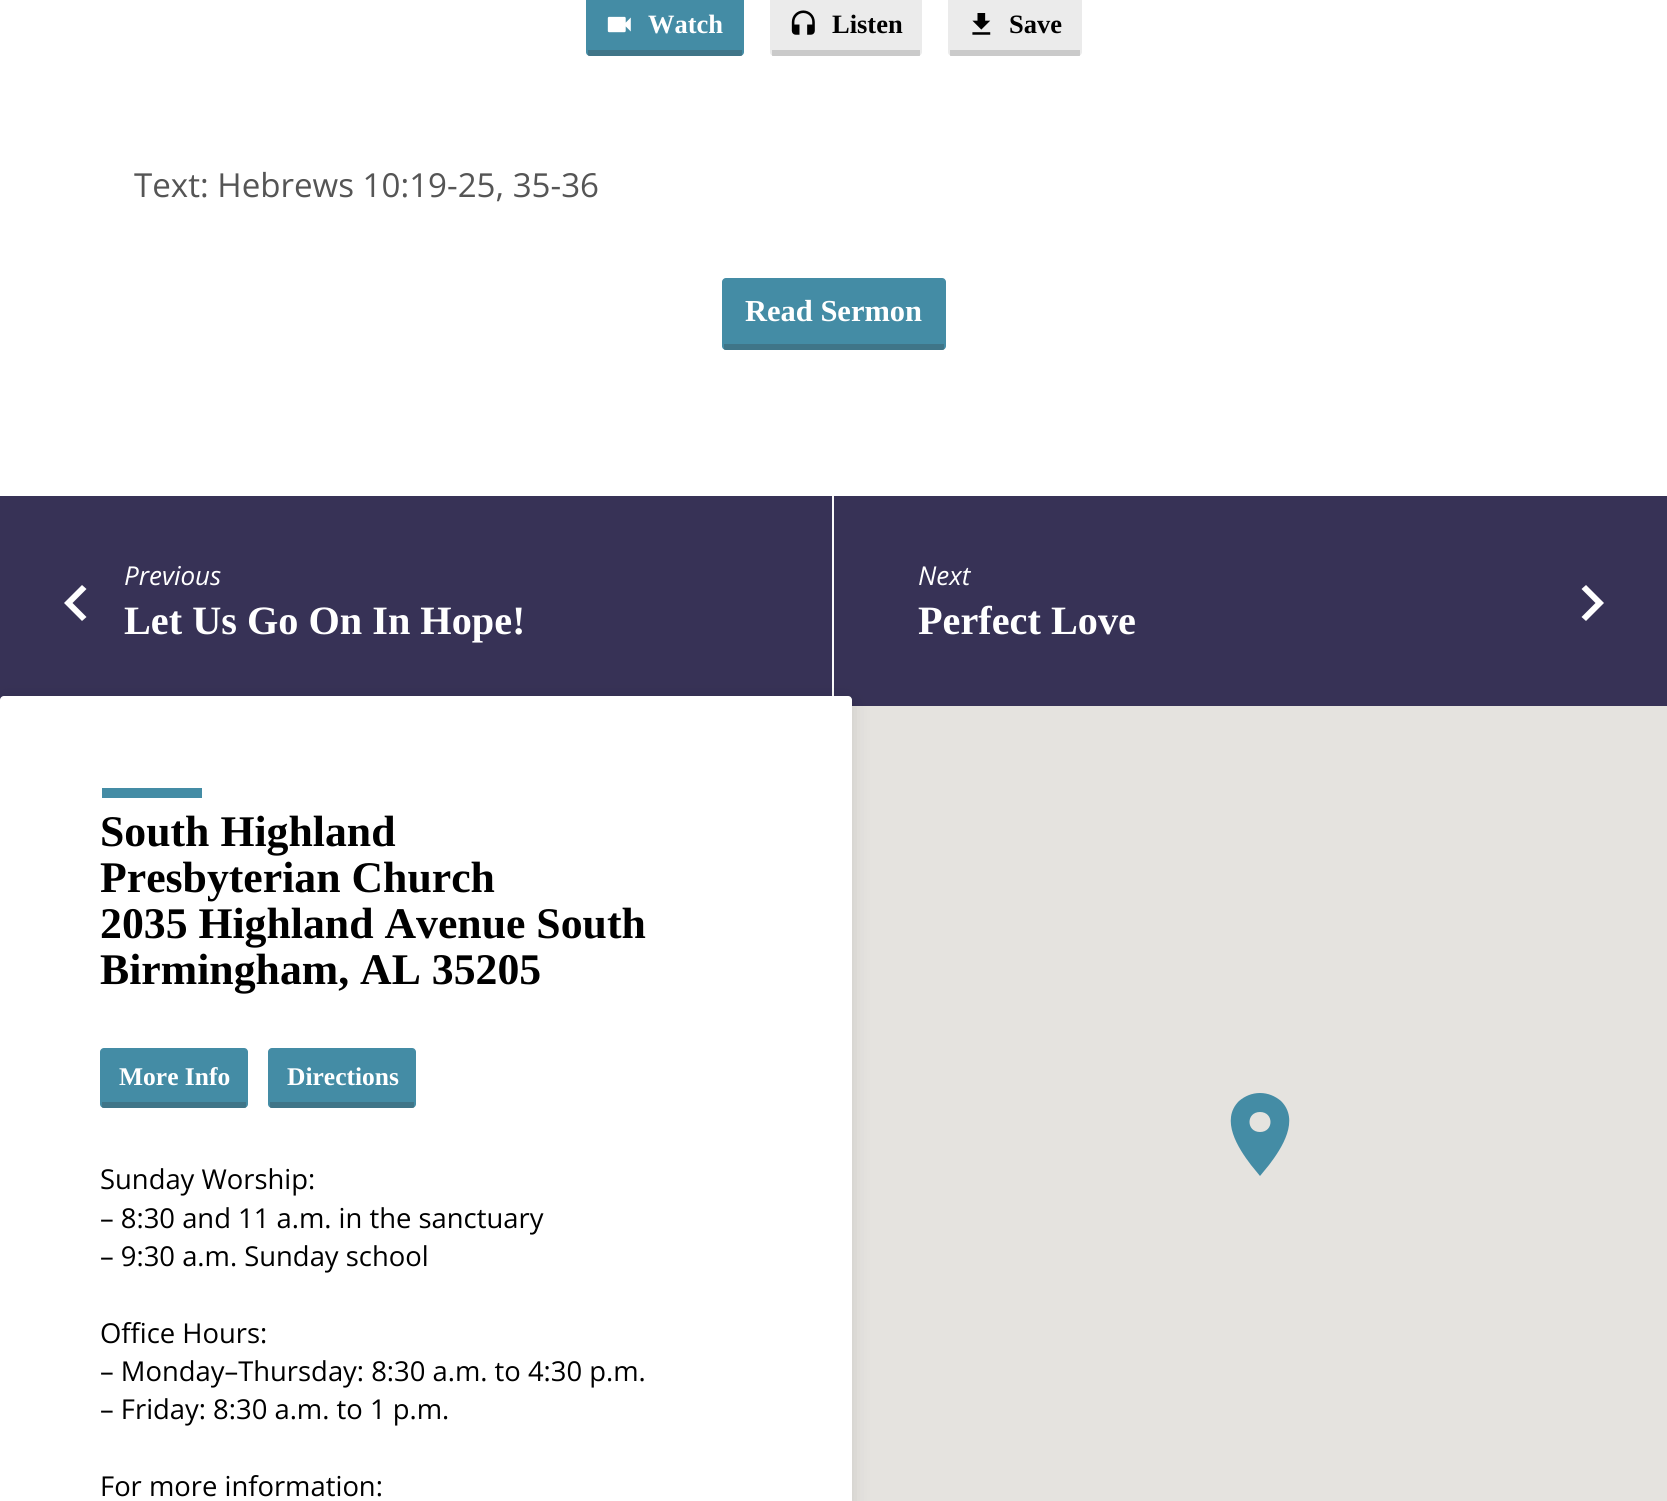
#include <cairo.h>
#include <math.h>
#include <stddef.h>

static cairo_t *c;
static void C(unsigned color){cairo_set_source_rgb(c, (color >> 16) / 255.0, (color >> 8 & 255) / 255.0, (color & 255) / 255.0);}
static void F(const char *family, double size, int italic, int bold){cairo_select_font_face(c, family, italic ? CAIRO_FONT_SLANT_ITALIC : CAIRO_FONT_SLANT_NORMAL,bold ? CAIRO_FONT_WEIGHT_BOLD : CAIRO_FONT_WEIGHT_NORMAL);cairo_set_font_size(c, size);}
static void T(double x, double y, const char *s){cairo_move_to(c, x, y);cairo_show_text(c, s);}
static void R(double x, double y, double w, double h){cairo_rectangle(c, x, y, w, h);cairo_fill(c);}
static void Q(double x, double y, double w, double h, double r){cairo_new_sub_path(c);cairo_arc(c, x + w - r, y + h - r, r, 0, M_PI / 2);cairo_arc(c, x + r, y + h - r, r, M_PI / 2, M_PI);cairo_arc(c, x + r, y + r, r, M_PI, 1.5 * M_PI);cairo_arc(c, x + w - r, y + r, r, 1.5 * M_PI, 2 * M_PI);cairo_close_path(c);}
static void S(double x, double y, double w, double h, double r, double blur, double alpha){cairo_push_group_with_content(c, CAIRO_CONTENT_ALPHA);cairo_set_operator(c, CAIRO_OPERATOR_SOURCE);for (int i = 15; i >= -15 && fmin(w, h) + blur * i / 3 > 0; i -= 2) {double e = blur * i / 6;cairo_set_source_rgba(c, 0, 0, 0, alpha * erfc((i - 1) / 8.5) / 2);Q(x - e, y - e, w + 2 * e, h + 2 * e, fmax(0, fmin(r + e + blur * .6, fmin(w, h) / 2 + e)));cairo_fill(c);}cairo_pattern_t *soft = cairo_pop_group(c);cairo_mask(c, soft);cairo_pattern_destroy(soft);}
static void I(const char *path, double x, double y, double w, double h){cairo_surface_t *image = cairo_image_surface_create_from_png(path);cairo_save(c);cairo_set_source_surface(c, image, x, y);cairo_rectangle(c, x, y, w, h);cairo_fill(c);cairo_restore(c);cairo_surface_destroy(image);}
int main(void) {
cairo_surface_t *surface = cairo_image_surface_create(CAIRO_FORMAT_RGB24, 1667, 1501);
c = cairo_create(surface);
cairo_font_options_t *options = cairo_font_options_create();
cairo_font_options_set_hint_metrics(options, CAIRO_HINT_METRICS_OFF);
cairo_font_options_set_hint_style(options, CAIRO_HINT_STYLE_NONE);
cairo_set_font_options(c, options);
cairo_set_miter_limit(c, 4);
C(0xffffff);
cairo_paint(c);
C(0x448ca5);
Q(586,-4,158,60,4);
cairo_fill(c);
cairo_set_source_rgba(c,0.196,0.196,0.196,0.25);
R(588,50,154,6);
I("1.png",607,16,24,17);
F("Tinos",26.5,0,1);
C(0xffffff);
T(648,33,"Watch");
C(0xebebeb);
Q(770,-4,152,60,4);
cairo_fill(c);
cairo_set_source_rgba(c,0.196,0.196,0.196,0.18);
R(772,50,148,6);
I("2.png",791,10,24,25);
C(0x000000);
T(832,33,"Listen");
C(0xebebeb);
Q(948,-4,134,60,4);
cairo_fill(c);
cairo_set_source_rgba(c,0.196,0.196,0.196,0.18);
R(950,50,130,6);
I("3.png",972,13,19,22);
C(0x000000);
T(1009,33,"Save");
F("Open Sans",33.1,0,0);
C(0x555555);
T(134,197,"Text: Hebrews 10:19-25, 35-36");
C(0x448ca5);
Q(722,278,224,72,4);
cairo_fill(c);
cairo_set_source_rgba(c,0.196,0.196,0.196,0.25);
R(724,344,220,6);
F("Tinos",30.5,0,1);
C(0xffffff);
T(745,321,"Read Sermon");
C(0x373256);
R(0,496,1667,210);
C(0xfafafa);
R(832,496,2,200);
C(0xffffff);
cairo_new_path(c);
cairo_move_to(c,86.5,617);
cairo_line_to(c,72.5,603);
cairo_line_to(c,86.5,589);
cairo_line_to(c,82,585);
cairo_line_to(c,64,603);
cairo_line_to(c,82,621);
cairo_close_path(c);
cairo_fill(c);
F("Open Sans",26,1,0);
T(124,585,"Previous");
F("Tinos",40.25,0,1);
T(124,634,"Let Us Go On In Hope!");
F("Open Sans",26,1,0);
T(918,585,"Next");
F("Tinos",40.25,0,1);
T(918,634,"Perfect Love");
cairo_new_path(c);
cairo_move_to(c,1581.5,617);
cairo_line_to(c,1595.5,603);
cairo_line_to(c,1581.5,589);
cairo_line_to(c,1586,585);
cairo_line_to(c,1604,603);
cairo_line_to(c,1586,621);
cairo_close_path(c);
cairo_fill(c);
C(0xe5e3df);
R(852,706,815,795);
C(0x000000);
S(0,700,852,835,4,10,.12);
C(0xffffff);
Q(0,696,852,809,4);
cairo_fill(c);
C(0x448ca5);
cairo_new_path(c);
cairo_move_to(c,1260,1132);
cairo_curve_to(c,1246,1132,1246,1112,1260,1112);
cairo_curve_to(c,1274,1112,1274,1132,1260,1132);
cairo_close_path(c);
cairo_move_to(c,1260,1093);
cairo_curve_to(c,1252,1093,1245,1096,1239,1101);
cairo_curve_to(c,1220,1120,1238,1148,1251,1165);
cairo_line_to(c,1260,1176);
cairo_line_to(c,1269,1165);
cairo_curve_to(c,1282,1148,1300,1120,1281,1101);
cairo_curve_to(c,1275,1096,1268,1093,1260,1093);
cairo_close_path(c);
cairo_fill(c);
R(102,788,100,10);
F("Tinos",43.75,0,1);
C(0x000000);
T(100,846,"South Highland");
T(100,892,"Presbyterian Church");
T(100,938,"2035 Highland Avenue South");
T(100,984,"Birmingham, AL 35205");
C(0x448ca5);
Q(100,1048,148,60,4);
cairo_fill(c);
cairo_set_source_rgba(c,0.196,0.196,0.196,0.25);
R(102,1102,144,6);
F("Tinos",25.5,0,1);
C(0xffffff);
T(119,1085,"More Info");
C(0x448ca5);
Q(268,1048,148,60,4);
cairo_fill(c);
cairo_set_source_rgba(c,0.196,0.196,0.196,0.25);
R(270,1102,144,6);
C(0xffffff);
T(287,1085,"Directions");
F("Open Sans",27.4,0,0);
C(0x000000);
T(100,1189,"Sunday Worship:");
T(100,1228,"– 8:30 and 11 a.m. in the sanctuary");
T(100,1266,"– 9:30 a.m. Sunday school");
T(100,1343,"Office Hours:");
T(100,1381,"– Monday–Thursday: 8:30 a.m. to 4:30 p.m.");
T(100,1419,"– Friday: 8:30 a.m. to 1 p.m.");
T(100,1496,"For more information:");
cairo_surface_write_to_png(surface, "o.png");
cairo_font_options_destroy(options);
cairo_destroy(c);
cairo_surface_destroy(surface);
return 0;
}
